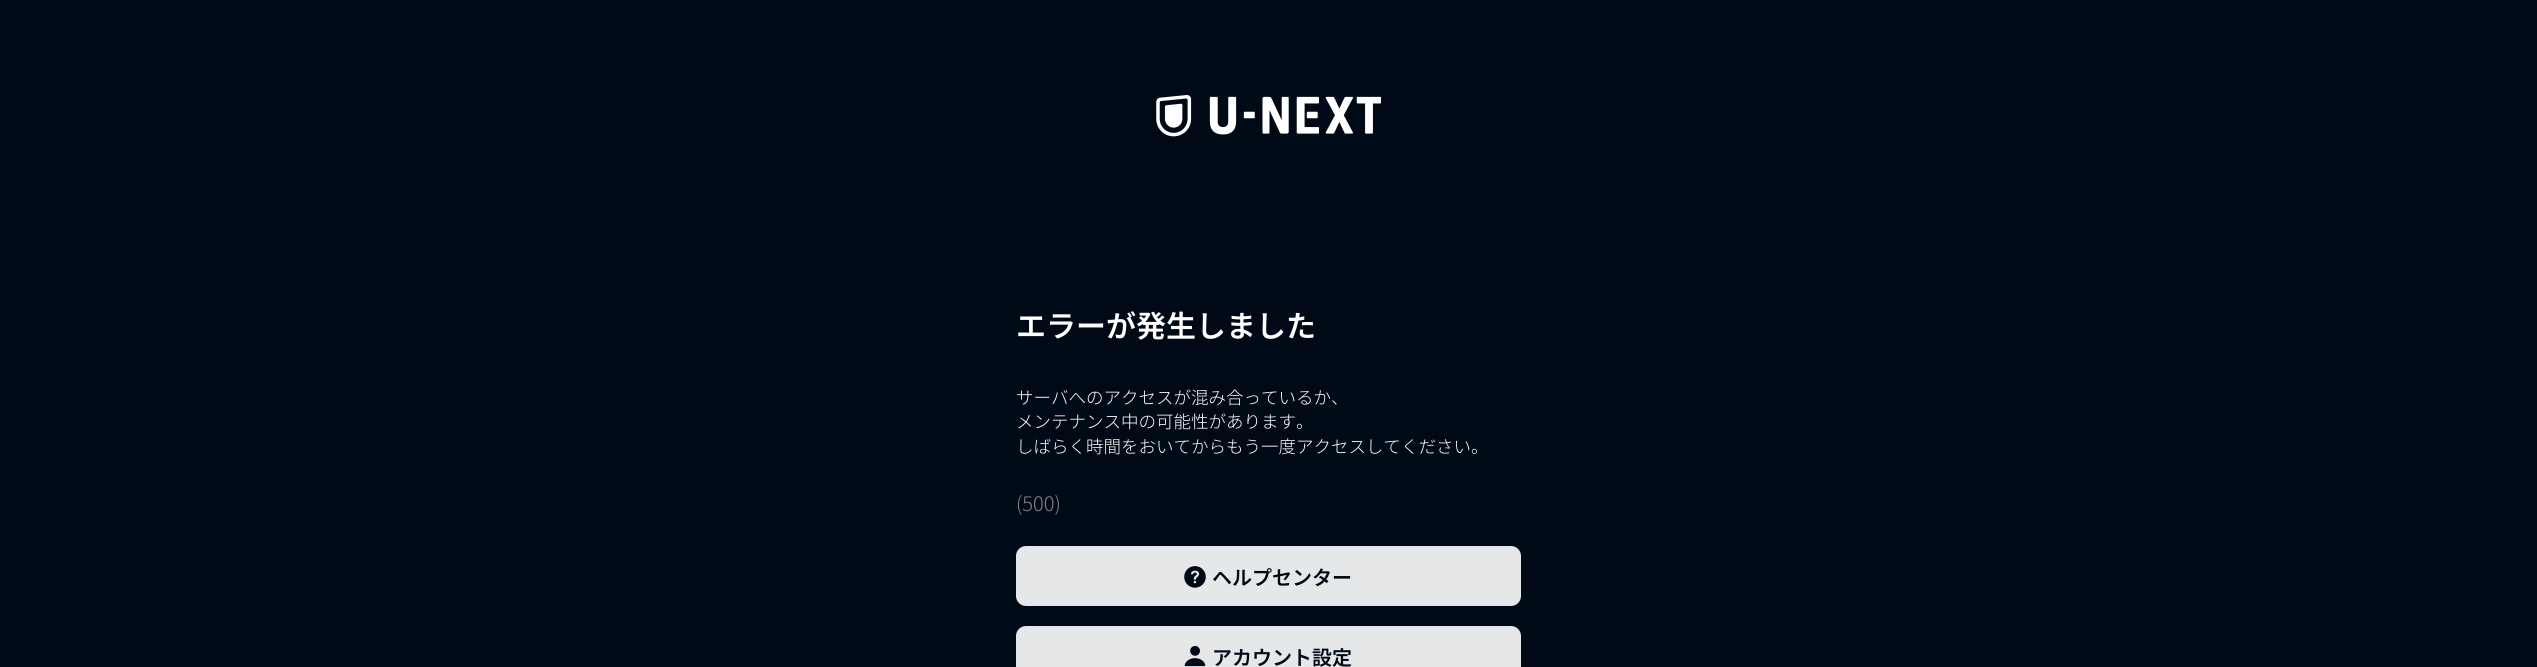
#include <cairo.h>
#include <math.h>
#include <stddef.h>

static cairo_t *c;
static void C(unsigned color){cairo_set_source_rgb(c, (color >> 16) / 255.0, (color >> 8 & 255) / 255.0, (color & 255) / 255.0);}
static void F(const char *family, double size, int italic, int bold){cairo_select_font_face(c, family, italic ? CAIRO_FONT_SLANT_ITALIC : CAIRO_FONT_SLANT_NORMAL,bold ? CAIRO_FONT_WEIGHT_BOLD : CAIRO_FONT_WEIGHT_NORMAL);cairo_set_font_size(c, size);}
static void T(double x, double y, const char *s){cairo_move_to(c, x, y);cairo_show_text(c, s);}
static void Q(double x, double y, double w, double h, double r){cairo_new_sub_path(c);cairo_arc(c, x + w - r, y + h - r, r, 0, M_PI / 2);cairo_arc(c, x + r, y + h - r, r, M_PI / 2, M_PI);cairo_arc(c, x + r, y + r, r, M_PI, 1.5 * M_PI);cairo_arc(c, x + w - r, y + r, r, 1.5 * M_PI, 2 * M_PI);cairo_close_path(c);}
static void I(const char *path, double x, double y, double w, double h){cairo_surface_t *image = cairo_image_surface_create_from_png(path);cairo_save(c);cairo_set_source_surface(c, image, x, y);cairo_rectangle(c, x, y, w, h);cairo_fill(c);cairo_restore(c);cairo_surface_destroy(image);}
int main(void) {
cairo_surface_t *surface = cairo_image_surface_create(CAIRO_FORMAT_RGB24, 2537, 667);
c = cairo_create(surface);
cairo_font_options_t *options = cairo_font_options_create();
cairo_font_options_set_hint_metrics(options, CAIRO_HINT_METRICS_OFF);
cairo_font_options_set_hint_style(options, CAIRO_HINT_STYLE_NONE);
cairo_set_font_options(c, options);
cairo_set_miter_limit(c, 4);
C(0x000a17);
cairo_paint(c);
I("1.png",1156,95,225,42);
F("Noto Sans JP SemiBold",30,0,0);
C(0xffffff);
T(1016,337,"エラーが発生しました");
F("Noto Sans JP Light",17.5,0,0);
T(1016,404,"サーバへのアクセスが混み合っているか、");
T(1016,428,"メンテナンス中の可能性があります。");
T(1016,453,"しばらく時間をおいてからもう一度アクセスしてください。");
F("Noto Sans JP Light",20,0,0);
C(0x80858b);
T(1016,511,"(500)");
C(0xe6e7e8);
Q(1016,546,505,60,10);
cairo_fill(c);
I("2.png",1184,566,22,22);
F("Noto Sans JP SemiBold",20,0,0);
C(0x000a17);
T(1212,585,"ヘルプセンター");
C(0xe6e7e8);
Q(1016,626,505,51,10);
cairo_fill(c);
I("3.png",1184,646,22,21);
C(0x000a17);
T(1212,665,"アカウント設定");
cairo_surface_write_to_png(surface, "o.png");
cairo_font_options_destroy(options);
cairo_destroy(c);
cairo_surface_destroy(surface);
return 0;
}
